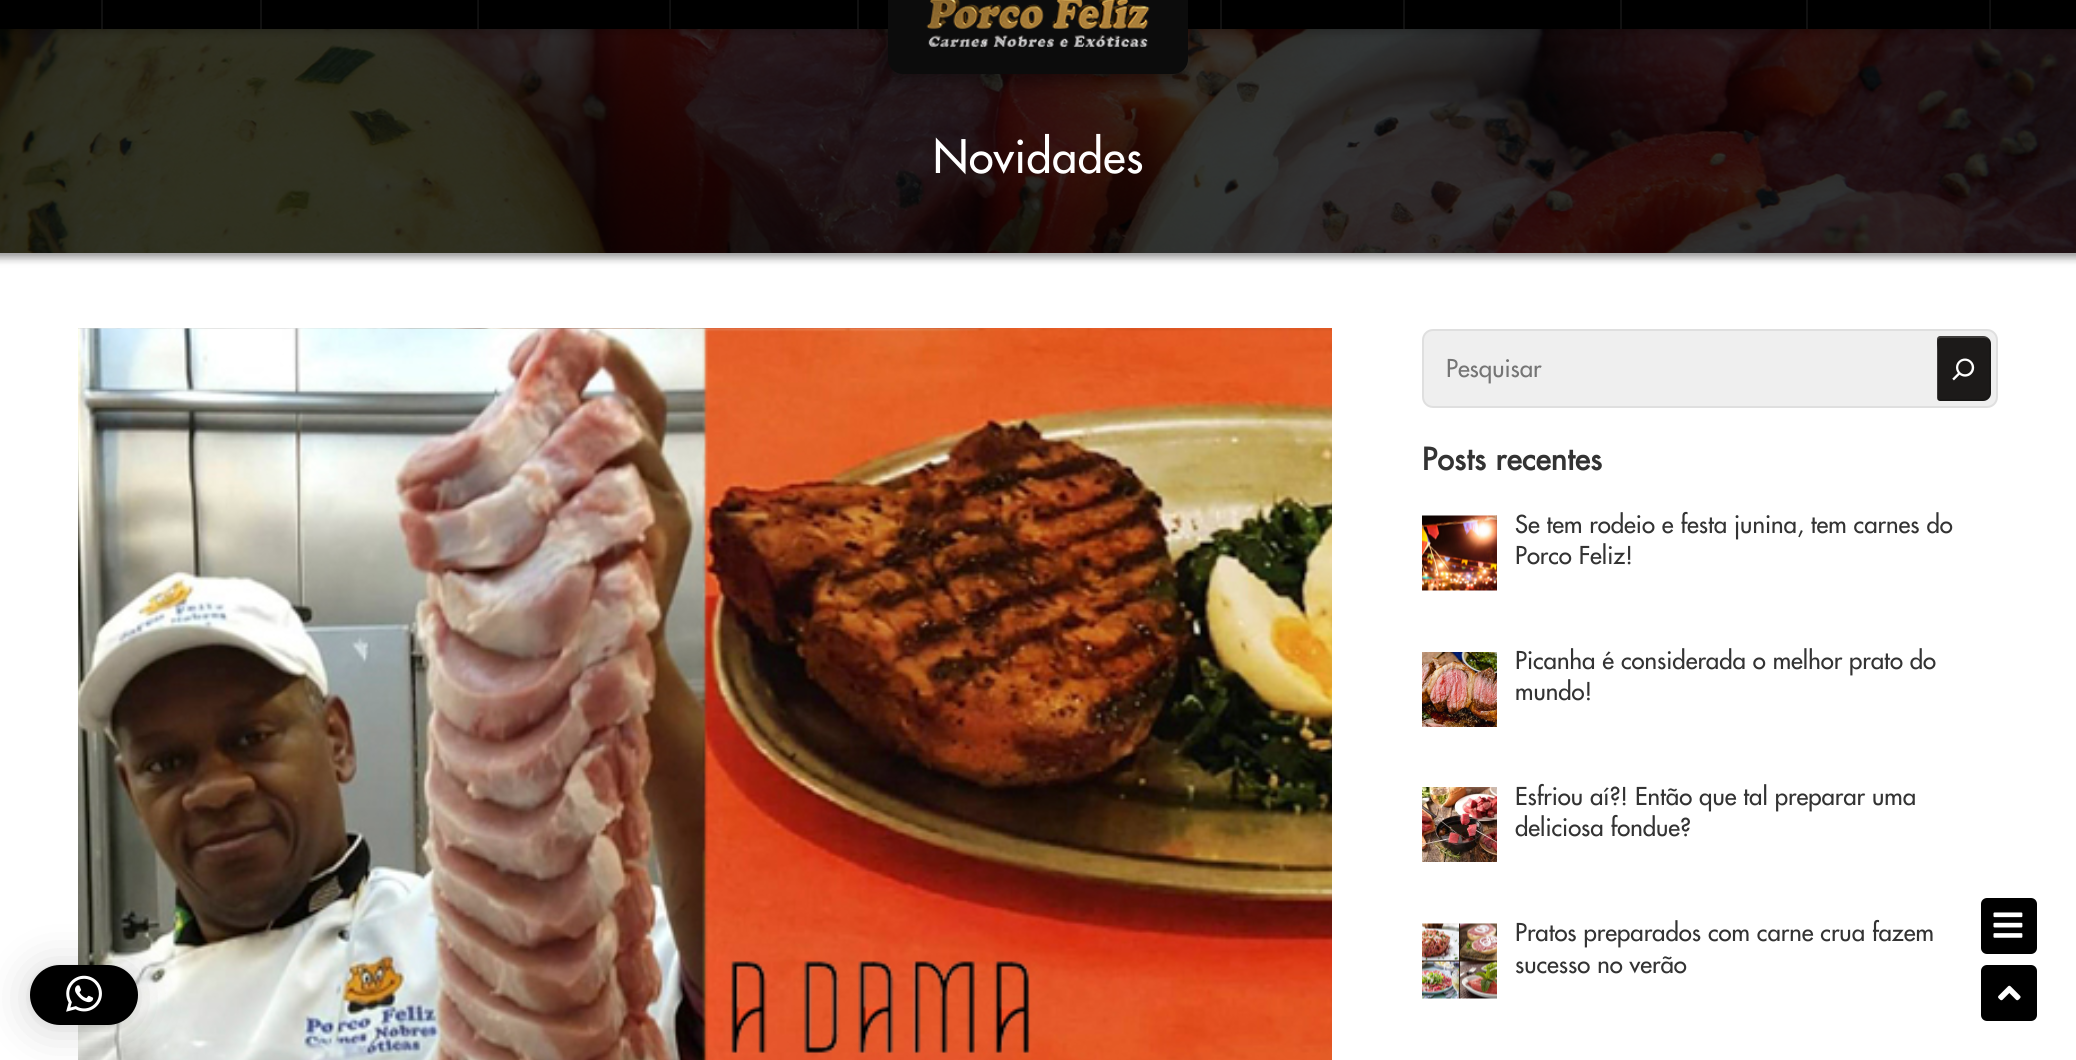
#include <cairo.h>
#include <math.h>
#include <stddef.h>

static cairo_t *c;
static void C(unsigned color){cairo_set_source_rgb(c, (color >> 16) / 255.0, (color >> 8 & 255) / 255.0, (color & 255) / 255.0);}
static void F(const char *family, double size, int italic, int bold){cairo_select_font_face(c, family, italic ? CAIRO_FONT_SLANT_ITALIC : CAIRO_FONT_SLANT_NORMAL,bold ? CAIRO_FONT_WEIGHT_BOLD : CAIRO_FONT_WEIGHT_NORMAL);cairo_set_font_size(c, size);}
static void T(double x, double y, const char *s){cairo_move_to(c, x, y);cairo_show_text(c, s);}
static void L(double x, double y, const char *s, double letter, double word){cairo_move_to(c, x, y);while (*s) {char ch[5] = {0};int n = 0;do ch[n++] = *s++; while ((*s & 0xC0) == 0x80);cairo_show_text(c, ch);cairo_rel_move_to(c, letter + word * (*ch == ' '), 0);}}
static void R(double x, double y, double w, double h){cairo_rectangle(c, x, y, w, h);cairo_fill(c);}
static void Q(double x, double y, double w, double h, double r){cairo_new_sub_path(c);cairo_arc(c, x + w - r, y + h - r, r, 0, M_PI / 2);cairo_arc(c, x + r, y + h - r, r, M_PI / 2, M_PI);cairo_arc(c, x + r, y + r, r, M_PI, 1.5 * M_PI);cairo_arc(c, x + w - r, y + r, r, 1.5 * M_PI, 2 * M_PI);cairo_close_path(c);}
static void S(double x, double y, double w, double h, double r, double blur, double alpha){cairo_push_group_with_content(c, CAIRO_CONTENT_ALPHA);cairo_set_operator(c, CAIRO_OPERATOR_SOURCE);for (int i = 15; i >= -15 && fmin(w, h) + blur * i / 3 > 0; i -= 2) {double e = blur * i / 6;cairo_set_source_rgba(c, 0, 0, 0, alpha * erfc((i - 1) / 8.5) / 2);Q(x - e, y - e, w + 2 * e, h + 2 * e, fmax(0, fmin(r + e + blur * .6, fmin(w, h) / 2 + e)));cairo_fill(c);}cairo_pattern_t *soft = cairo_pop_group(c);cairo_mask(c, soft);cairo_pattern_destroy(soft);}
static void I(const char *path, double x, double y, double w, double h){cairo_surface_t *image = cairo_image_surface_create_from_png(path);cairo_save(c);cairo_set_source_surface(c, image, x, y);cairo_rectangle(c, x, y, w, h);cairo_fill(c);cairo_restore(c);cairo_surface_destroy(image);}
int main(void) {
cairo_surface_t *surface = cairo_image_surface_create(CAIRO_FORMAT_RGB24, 2076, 1060);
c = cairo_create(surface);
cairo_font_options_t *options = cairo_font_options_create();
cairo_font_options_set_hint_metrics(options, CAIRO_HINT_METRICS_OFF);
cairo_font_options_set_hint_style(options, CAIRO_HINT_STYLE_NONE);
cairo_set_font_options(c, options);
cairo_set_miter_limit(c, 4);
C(0xffffff);
cairo_paint(c);
C(0x000000);
S(-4,24,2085,234,0,4,.4);
I("2.png",0,29,2076,224);
S(0,-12,2076,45,0,4,.2);
C(0x000000);
R(0,0,888,29);
R(1188,0,888,29);
C(0x000000);
S(888,-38,300,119,15,7.5,.33);
C(0x0c0c0c);
cairo_new_path(c);
cairo_move_to(c,888,-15);
cairo_line_to(c,1188,-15);
cairo_line_to(c,1188,59);
cairo_curve_to(c,1188,67.5,1181.5,74,1173,74);
cairo_line_to(c,903,74);
cairo_curve_to(c,894.5,74,888,67.5,888,59);
cairo_close_path(c);
cairo_fill(c);
I("1.png",926,0,224,47);
C(0x111111);
R(857,0,2,29);
R(101,0,2,29);
R(477,0,2,29);
cairo_set_source_rgba(c,0,0,0,0.2);
R(477,0,1,29);
C(0x111111);
R(260,0,2,29);
R(669,0,2,29);
cairo_set_source_rgba(c,0,0,0,0.2);
R(669,0,1,29);
C(0x111111);
R(1989,0,2,29);
R(1220,0,2,29);
R(1403,0,2,29);
R(1620,0,2,29);
cairo_set_source_rgba(c,0,0,0,0.2);
R(1989,0,1,29);
C(0x111111);
R(1806,0,2,29);
F("Futura",45,0,0);
C(0xffffff);
L(933,173,"Novidades",.6,0);
I("4.png",78,328,1254,732);
C(0x000000);
S(30,968,108,60,30,24,.16);
S(30,966,108,60,30,4.5,.06);
C(0x000000);
Q(30,965,108,60,30);
cairo_fill(c);
I("3.png",66,975,36,37);
C(0xefefef);
Q(1422,329,576,79,11);
cairo_fill(c);
Q(1423,330,574,77,10);
cairo_set_source_rgba(c,0,0,0,0.07);
cairo_stroke(c);
F("Futura",24,0,0);
C(0x757575);
T(1446,377,"Pesquisar");
C(0x1c1a19);
cairo_new_path(c);
cairo_move_to(c,1940,336);
cairo_line_to(c,1983,336);
cairo_curve_to(c,1987.5,336,1991,339.5,1991,344);
cairo_line_to(c,1991,393);
cairo_curve_to(c,1991,397.5,1987.5,401,1983,401);
cairo_line_to(c,1940,401);
cairo_curve_to(c,1938.5,401,1937,399.5,1937,398);
cairo_line_to(c,1937,339);
cairo_curve_to(c,1937,337.5,1938.5,336,1940,336);
cairo_close_path(c);
cairo_fill(c);
cairo_set_source_rgba(c,0,0,0,0.13);
cairo_new_path(c);
cairo_move_to(c,1937,399);
cairo_curve_to(c,1938,400,1939,401,1940,401);
cairo_line_to(c,1983,401);
cairo_curve_to(c,1987,401,1991,397,1991,393);
cairo_line_to(c,1991,344);
cairo_curve_to(c,1991,341,1990,339,1988,338);
cairo_curve_to(c,1990,341,1989,347,1989,350);
cairo_line_to(c,1989,384);
cairo_curve_to(c,1989,389,1991,398,1983,399);
cairo_close_path(c);
cairo_fill(c);
cairo_set_source_rgba(c,1,1,1,0.15);
cairo_new_path(c);
cairo_move_to(c,1941,338);
cairo_line_to(c,1984,338);
cairo_curve_to(c,1987,338,1989,339,1990,340);
cairo_curve_to(c,1989,338,1986,336,1983,336);
cairo_line_to(c,1940,336);
cairo_curve_to(c,1938,336,1937,337,1937,339);
cairo_line_to(c,1937,398);
cairo_curve_to(c,1937,399,1937,400,1938,400);
cairo_line_to(c,1938,350);
cairo_curve_to(c,1938,347,1935,338,1941,338);
cairo_close_path(c);
cairo_fill(c);
I("5.png",1952,358,23,23);
F("Futura",30,0,1);
C(0x333333);
L(1422,470,"Posts recentes",.6,0);
I("6.png",1422,515,75,76);
F("Futura",24,0,0);
T(1515,533,"Se tem rodeio e festa junina, tem carnes do");
T(1515,564,"Porco Feliz!");
I("7.png",1422,652,75,75);
T(1515,669,"Picanha é considerada o melhor prato do");
T(1515,700,"mundo!");
I("8.png",1422,787,75,75);
T(1515,805,"Esfriou aí?! Então que tal preparar uma");
T(1515,836,"deliciosa fondue?");
I("9.png",1422,923,75,76);
T(1515,941,"Pratos preparados com carne crua fazem");
T(1515,973,"sucesso no verão");
C(0x000000);
Q(1980,897,58,58,7);
cairo_fill_preserve(c);
C(0xffffff);
cairo_stroke(c);
I("10.png",1993,912,30,26);
C(0x000000);
Q(1980,964,58,58,7);
cairo_fill_preserve(c);
C(0xffffff);
cairo_stroke(c);
I("11.png",1998,985,23,16);
cairo_surface_write_to_png(surface, "o.png");
cairo_font_options_destroy(options);
cairo_destroy(c);
cairo_surface_destroy(surface);
return 0;
}
